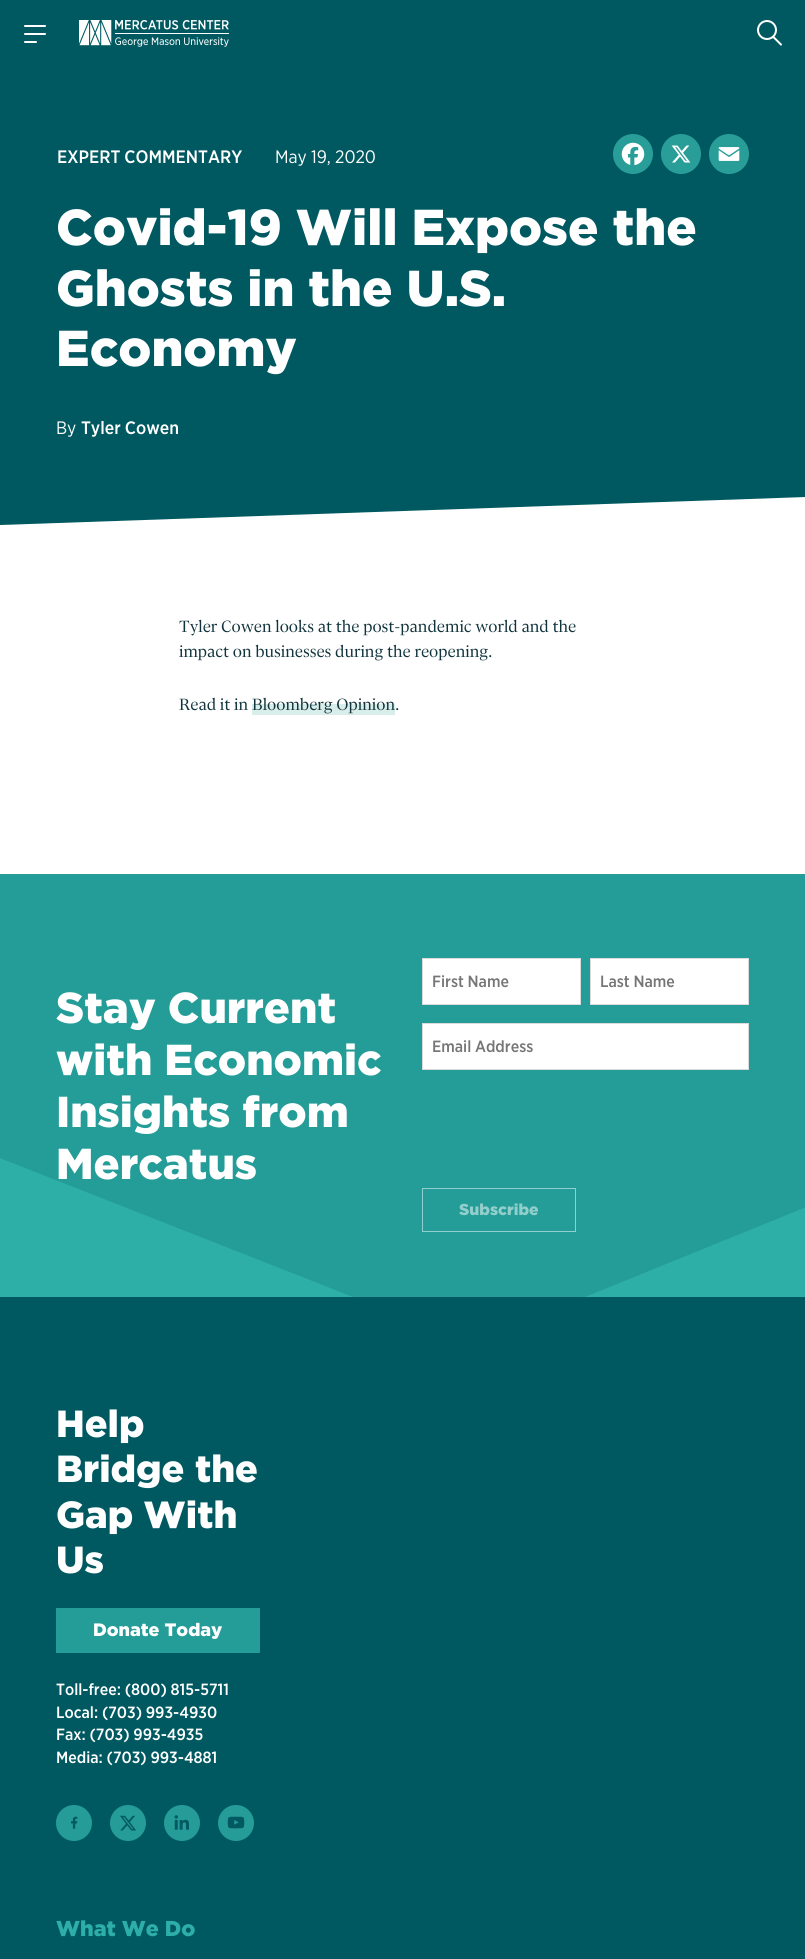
#include <cairo.h>
#include <math.h>
#include <stddef.h>

static cairo_t *c;
static void C(unsigned color){cairo_set_source_rgb(c, (color >> 16) / 255.0, (color >> 8 & 255) / 255.0, (color & 255) / 255.0);}
static void F(const char *family, double size, int italic, int bold){cairo_select_font_face(c, family, italic ? CAIRO_FONT_SLANT_ITALIC : CAIRO_FONT_SLANT_NORMAL,bold ? CAIRO_FONT_WEIGHT_BOLD : CAIRO_FONT_WEIGHT_NORMAL);cairo_set_font_size(c, size);}
static void T(double x, double y, const char *s){cairo_move_to(c, x, y);cairo_show_text(c, s);}
static void R(double x, double y, double w, double h){cairo_rectangle(c, x, y, w, h);cairo_fill(c);}
static void Q(double x, double y, double w, double h, double r){cairo_new_sub_path(c);cairo_arc(c, x + w - r, y + h - r, r, 0, M_PI / 2);cairo_arc(c, x + r, y + h - r, r, M_PI / 2, M_PI);cairo_arc(c, x + r, y + r, r, M_PI, 1.5 * M_PI);cairo_arc(c, x + w - r, y + r, r, 1.5 * M_PI, 2 * M_PI);cairo_close_path(c);}
static void I(const char *path, double x, double y, double w, double h){cairo_surface_t *image = cairo_image_surface_create_from_png(path);cairo_save(c);cairo_set_source_surface(c, image, x, y);cairo_rectangle(c, x, y, w, h);cairo_fill(c);cairo_restore(c);cairo_surface_destroy(image);}
int main(void) {
cairo_surface_t *surface = cairo_image_surface_create(CAIRO_FORMAT_RGB24, 805, 1959);
c = cairo_create(surface);
cairo_font_options_t *options = cairo_font_options_create();
cairo_font_options_set_hint_metrics(options, CAIRO_HINT_METRICS_OFF);
cairo_font_options_set_hint_style(options, CAIRO_HINT_STYLE_NONE);
cairo_set_font_options(c, options);
cairo_set_miter_limit(c, 4);
C(0xffffff);
cairo_paint(c);
C(0x005961);
R(0,0,805,525);
C(0xffffff);
Q(24,25,22,2,1);
cairo_fill(c);
Q(24,33,22,2,1);
cairo_fill(c);
Q(24,41,13,2,1);
cairo_fill(c);
I("1.png",79,20,150,27);
I("2.png",757,20,25,26);
cairo_new_path(c);
cairo_move_to(c,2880,425);
cairo_line_to(c,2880,525);
cairo_line_to(c,0,525);
cairo_close_path(c);
cairo_fill(c);
F("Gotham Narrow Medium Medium",18,0,0);
T(57,163,"EXPERT COMMENTARY");
F("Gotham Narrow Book",18,0,0);
T(275,163,"May 19, 2020");
C(0x299e98);
cairo_new_path(c);
cairo_arc(c,633,154,20,0,2 * M_PI);
cairo_fill(c);
I("3.png",621,142,24,24);
cairo_arc(c,681,154,20,0,2 * M_PI);
cairo_fill(c);
I("4.png",671,145,20,18);
cairo_arc(c,729,154,20,0,2 * M_PI);
cairo_fill(c);
I("5.png",718,147,22,14);
F("Gotham Black",50.4,0,0);
C(0xffffff);
T(56,245,"Covid-19 Will Expose the");
T(56,306,"Ghosts in the U.S.");
T(56,366,"Economy");
F("Gotham Narrow Book",18,0,0);
T(56,434,"By");
F("Gotham Narrow Medium Medium",18,0,0);
T(81,434,"Tyler Cowen");
F("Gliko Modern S",18,0,0);
C(0x10333b);
T(179,632,"Tyler Cowen looks at the post-pandemic world and the");
T(179,657,"impact on businesses during the reopening.");
T(179,710,"Read it in");
C(0xd9eeea);
R(252,704,143,11);
C(0x10333b);
T(252,710,"Bloomberg Opinion.");
C(0x005961);
cairo_new_path(c);
cairo_move_to(c,0,1095);
cairo_line_to(c,0,1316);
cairo_line_to(c,805,1316);
cairo_line_to(c,805,1065);
cairo_line_to(c,798,1065);
cairo_close_path(c);
cairo_fill(c);
C(0x249c97);
R(0,874,805,423);
C(0x2dafa8);
cairo_new_path(c);
cairo_move_to(c,-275,1297);
cairo_line_to(c,353,1297);
cairo_line_to(c,-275,1050);
cairo_close_path(c);
cairo_fill(c);
cairo_new_path(c);
cairo_move_to(c,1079,1297);
cairo_line_to(c,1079,1096);
cairo_line_to(c,585,1297);
cairo_close_path(c);
cairo_fill(c);
F("Gotham Black",43.25,0,0);
C(0xffffff);
T(56,1023,"Stay Current");
T(56,1075,"with Economic");
T(56,1127,"Insights from");
T(56,1179,"Mercatus");
cairo_rectangle(c,422.5,958.5,158,46);
cairo_fill_preserve(c);
C(0xdbdbdb);
cairo_set_line_width(c,1);
cairo_stroke(c);
F("Gotham Narrow Medium Medium",16.25,0,0);
C(0x767676);
T(432,987,"First Name");
C(0xffffff);
cairo_rectangle(c,590.5,958.5,158,46);
cairo_fill_preserve(c);
C(0xdbdbdb);
cairo_stroke(c);
C(0x767676);
T(600,987,"Last Name");
C(0xffffff);
cairo_rectangle(c,422.5,1023.5,326,46);
cairo_fill_preserve(c);
C(0xdbdbdb);
cairo_stroke(c);
C(0x767676);
T(432,1052,"Email Address");
cairo_rectangle(c,422.5,1188.5,153,43);
C(0x92cecb);
cairo_stroke(c);
F("Gotham Black",15.75,0,0);
T(459,1215,"Subscribe");
C(0x005961);
R(0,1316,805,643);
F("Gotham Black",37.75,0,0);
C(0xffffff);
T(56,1437,"Help");
T(56,1482,"Bridge the");
T(56,1528,"Gap With");
T(56,1573,"Us");
C(0x249c97);
R(56,1608,204,45);
F("Gotham Black",18,0,0);
C(0xffffff);
T(93,1636,"Donate Today");
F("Gotham Narrow Medium Medium",16.25,0,0);
T(56,1695,"Toll-free: (800) 815-5711");
T(56,1718,"Local: (703) 993-4930");
T(56,1740,"Fax: (703) 993-4935");
T(56,1763,"Media: (703) 993-4881");
C(0x259c97);
cairo_new_path(c);
cairo_arc(c,74,1823,18,0,2 * M_PI);
cairo_fill(c);
I("6.png",71,1816,7,13);
cairo_arc(c,128,1823,18,0,2 * M_PI);
cairo_fill(c);
I("7.png",120,1815,16,16);
cairo_arc(c,182,1823,18,0,2 * M_PI);
cairo_fill(c);
I("8.png",174,1815,15,15);
cairo_arc(c,236,1823,18,0,2 * M_PI);
cairo_fill(c);
I("9.png",227,1816,18,13);
F("Gotham Black",21.5,0,0);
C(0x2dafa8);
T(56,1936,"What We Do");
cairo_surface_write_to_png(surface, "o.png");
cairo_font_options_destroy(options);
cairo_destroy(c);
cairo_surface_destroy(surface);
return 0;
}
